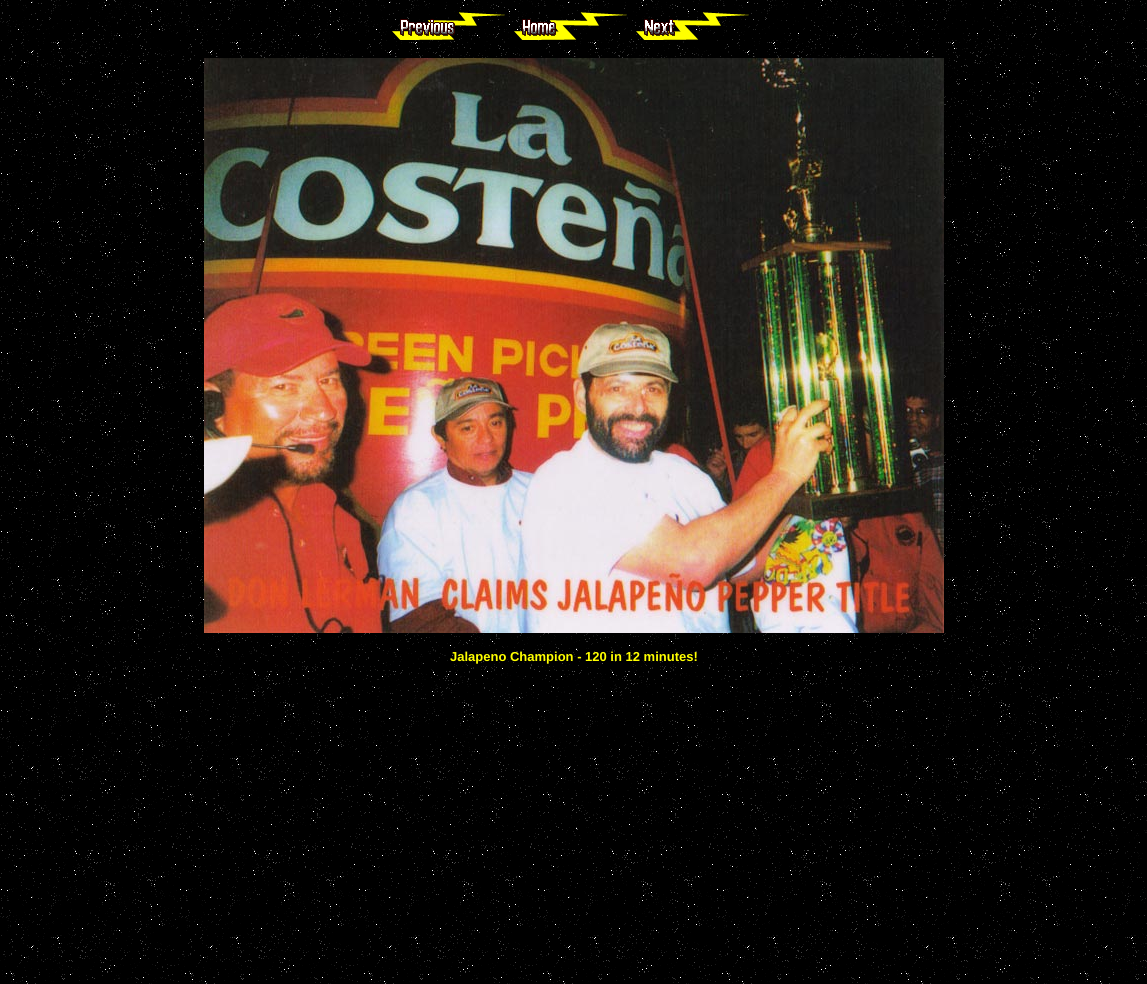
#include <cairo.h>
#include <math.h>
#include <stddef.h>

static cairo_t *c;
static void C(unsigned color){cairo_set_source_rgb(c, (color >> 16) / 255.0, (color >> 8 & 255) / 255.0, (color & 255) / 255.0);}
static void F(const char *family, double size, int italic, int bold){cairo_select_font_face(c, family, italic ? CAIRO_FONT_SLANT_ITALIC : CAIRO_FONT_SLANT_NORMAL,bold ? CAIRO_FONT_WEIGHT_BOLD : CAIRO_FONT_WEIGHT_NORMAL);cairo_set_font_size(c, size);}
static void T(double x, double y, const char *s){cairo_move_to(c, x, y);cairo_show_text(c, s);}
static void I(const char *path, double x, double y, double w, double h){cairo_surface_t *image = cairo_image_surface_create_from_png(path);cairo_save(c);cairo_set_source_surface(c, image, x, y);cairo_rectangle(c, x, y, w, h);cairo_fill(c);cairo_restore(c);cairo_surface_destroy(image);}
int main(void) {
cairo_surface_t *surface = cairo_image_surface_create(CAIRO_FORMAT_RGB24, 1147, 984);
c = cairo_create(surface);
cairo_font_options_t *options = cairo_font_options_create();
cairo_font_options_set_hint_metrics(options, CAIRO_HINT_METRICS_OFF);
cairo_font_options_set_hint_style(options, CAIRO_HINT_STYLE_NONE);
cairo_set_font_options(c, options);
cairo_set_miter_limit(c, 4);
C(0xffffff);
cairo_paint(c);
I("1.png",0,0,1147,984);
I("2.png",392,12,113,28);
I("3.png",514,12,113,28);
I("4.png",636,12,113,28);
I("5.png",204,58,740,575);
F("Liberation Sans",13,0,1);
C(0xffff00);
T(450,661,"Jalapeno Champion - 120 in 12 minutes!");
cairo_surface_write_to_png(surface, "o.png");
cairo_font_options_destroy(options);
cairo_destroy(c);
cairo_surface_destroy(surface);
return 0;
}
